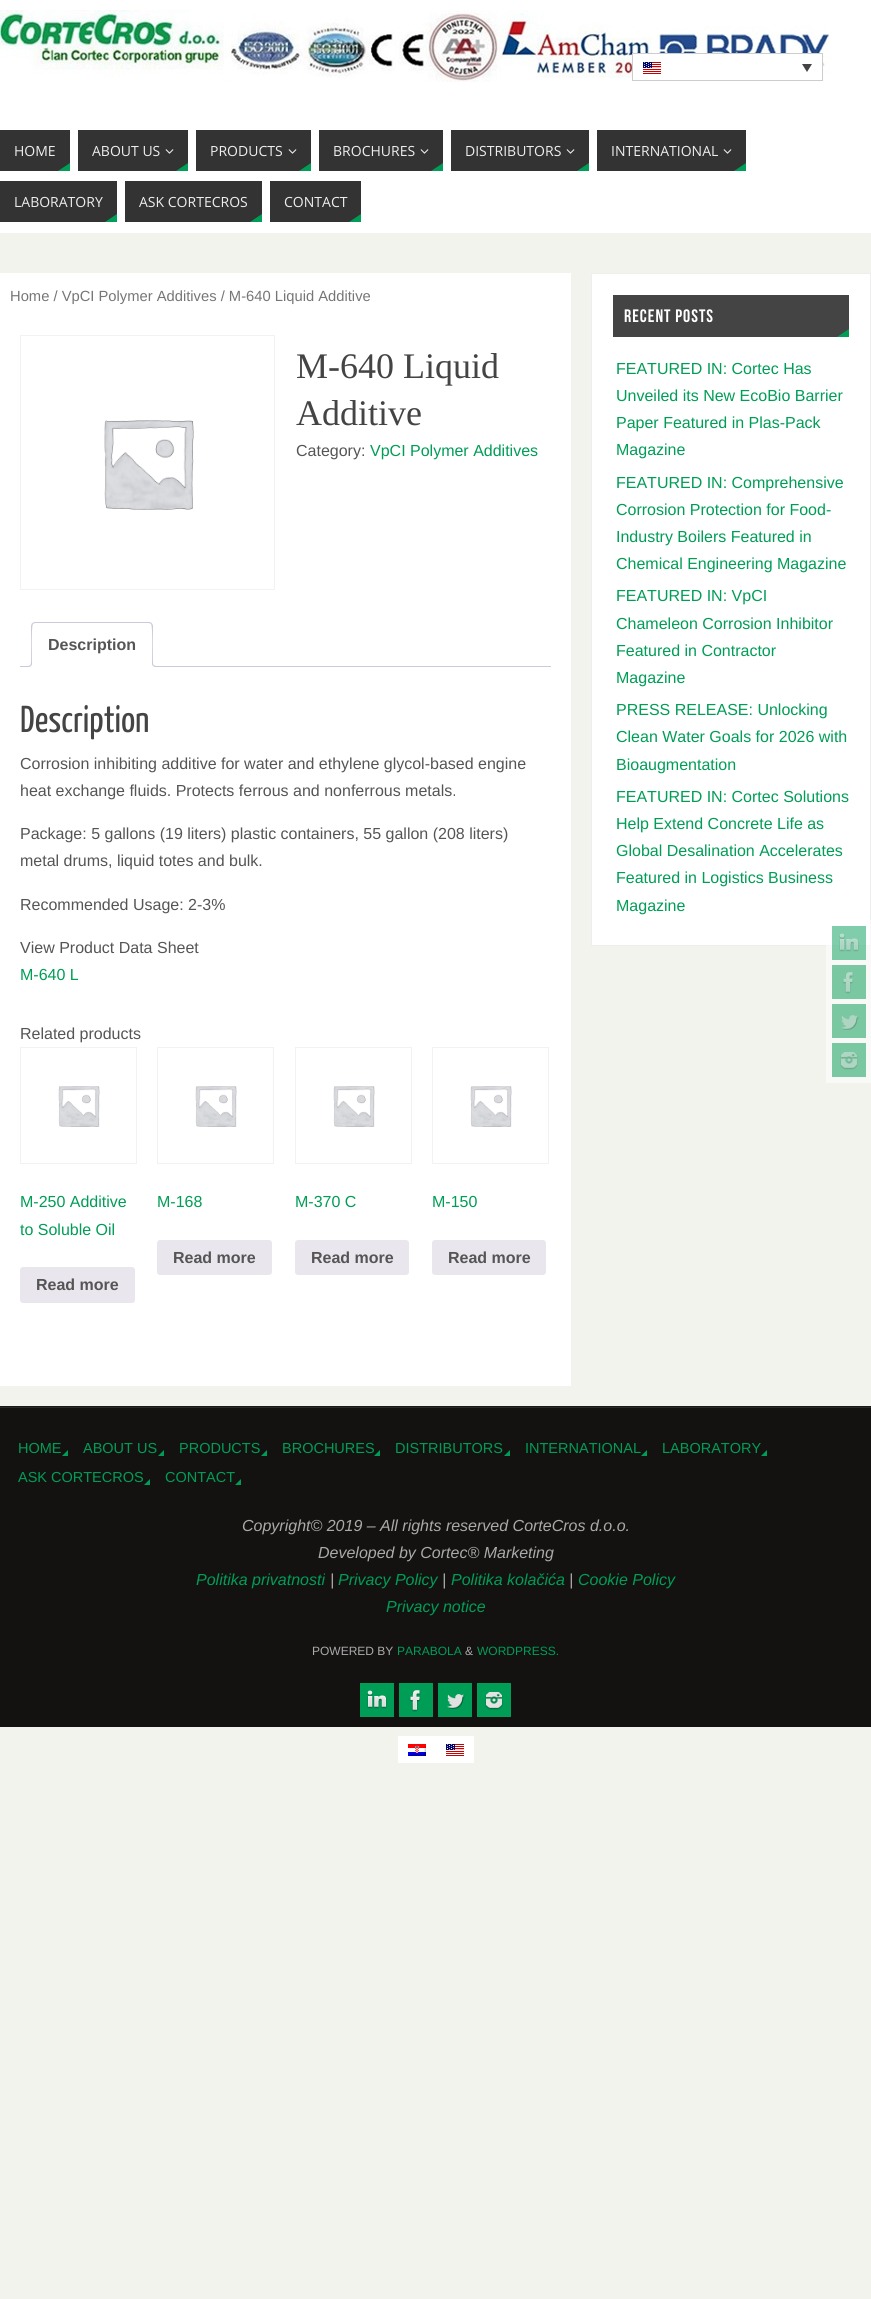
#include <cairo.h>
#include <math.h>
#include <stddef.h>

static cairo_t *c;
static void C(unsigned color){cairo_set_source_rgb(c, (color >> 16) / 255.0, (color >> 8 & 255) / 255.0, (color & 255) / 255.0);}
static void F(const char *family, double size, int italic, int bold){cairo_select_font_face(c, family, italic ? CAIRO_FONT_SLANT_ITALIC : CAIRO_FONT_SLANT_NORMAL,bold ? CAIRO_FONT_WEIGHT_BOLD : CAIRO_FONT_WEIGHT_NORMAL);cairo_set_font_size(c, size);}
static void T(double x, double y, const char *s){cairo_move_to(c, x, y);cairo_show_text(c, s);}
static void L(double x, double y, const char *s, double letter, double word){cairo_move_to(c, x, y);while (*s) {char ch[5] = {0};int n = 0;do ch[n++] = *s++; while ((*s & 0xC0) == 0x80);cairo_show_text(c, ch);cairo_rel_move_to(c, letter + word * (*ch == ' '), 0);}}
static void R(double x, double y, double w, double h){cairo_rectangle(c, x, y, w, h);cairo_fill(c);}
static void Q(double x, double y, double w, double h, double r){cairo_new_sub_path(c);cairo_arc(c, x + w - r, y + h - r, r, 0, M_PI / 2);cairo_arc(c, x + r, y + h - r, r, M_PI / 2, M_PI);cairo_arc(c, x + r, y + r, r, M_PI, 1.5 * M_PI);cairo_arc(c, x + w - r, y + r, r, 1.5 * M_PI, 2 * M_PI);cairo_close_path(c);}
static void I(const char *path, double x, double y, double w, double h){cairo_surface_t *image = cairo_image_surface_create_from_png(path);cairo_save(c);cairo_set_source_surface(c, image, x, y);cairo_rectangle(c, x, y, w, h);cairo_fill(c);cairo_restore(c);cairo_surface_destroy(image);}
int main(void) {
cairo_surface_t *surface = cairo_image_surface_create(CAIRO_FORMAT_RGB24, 871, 2299);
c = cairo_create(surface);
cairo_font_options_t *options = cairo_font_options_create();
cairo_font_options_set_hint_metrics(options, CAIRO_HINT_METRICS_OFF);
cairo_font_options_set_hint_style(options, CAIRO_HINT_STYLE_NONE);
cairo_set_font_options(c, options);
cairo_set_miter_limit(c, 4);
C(0xf3f3ee);
cairo_paint(c);
C(0xffffff);
R(0,0,871,233);
I("1.png",0,10,830,72);
R(633,54,189,25);
cairo_rectangle(c,632.5,53.5,190,27);
C(0xcdcdcd);
cairo_set_line_width(c,1);
cairo_stroke(c);
I("2.png",643,62,18,12);
C(0x444444);
cairo_new_path(c);
cairo_move_to(c,802,64);
cairo_line_to(c,812,64);
cairo_line_to(c,807,72);
cairo_close_path(c);
cairo_fill(c);
C(0x333333);
R(0,130,70,41);
F("Open Sans",14,0,0);
C(0xeeeeee);
T(14,156,"HOME");
C(0x009d56);
cairo_new_path(c);
cairo_move_to(c,70,171);
cairo_line_to(c,58,171);
cairo_line_to(c,70,163);
cairo_close_path(c);
cairo_fill(c);
C(0x333333);
R(78,130,110,41);
C(0xeeeeee);
T(92,156,"ABOUT US");
I("3.png",165,149,9,5);
C(0x009d56);
cairo_new_path(c);
cairo_move_to(c,188,171);
cairo_line_to(c,176,171);
cairo_line_to(c,188,163);
cairo_close_path(c);
cairo_fill(c);
C(0x333333);
R(196,130,115,41);
C(0xeeeeee);
T(210,156,"PRODUCTS");
I("3.png",288,149,9,5);
C(0x009d56);
cairo_new_path(c);
cairo_move_to(c,311,171);
cairo_line_to(c,299,171);
cairo_line_to(c,311,163);
cairo_close_path(c);
cairo_fill(c);
C(0x333333);
R(319,130,124,41);
C(0xeeeeee);
T(333,156,"BROCHURES");
I("3.png",420,149,9,5);
C(0x009d56);
cairo_new_path(c);
cairo_move_to(c,443,171);
cairo_line_to(c,431,171);
cairo_line_to(c,443,163);
cairo_close_path(c);
cairo_fill(c);
C(0x333333);
R(451,130,138,41);
C(0xeeeeee);
T(465,156,"DISTRIBUTORS");
I("3.png",566,149,9,5);
C(0x009d56);
cairo_new_path(c);
cairo_move_to(c,589,171);
cairo_line_to(c,577,171);
cairo_line_to(c,589,163);
cairo_close_path(c);
cairo_fill(c);
C(0x333333);
R(597,130,149,41);
C(0xeeeeee);
T(611,156,"INTERNATIONAL");
I("3.png",723,149,9,5);
C(0x009d56);
cairo_new_path(c);
cairo_move_to(c,746,171);
cairo_line_to(c,734,171);
cairo_line_to(c,746,163);
cairo_close_path(c);
cairo_fill(c);
C(0x333333);
R(0,181,117,41);
C(0xeeeeee);
T(14,207,"LABORATORY");
C(0x009d56);
cairo_new_path(c);
cairo_move_to(c,117,222);
cairo_line_to(c,105,222);
cairo_line_to(c,117,214);
cairo_close_path(c);
cairo_fill(c);
C(0x333333);
R(125,181,137,41);
C(0xeeeeee);
T(139,207,"ASK CORTECROS");
C(0x009d56);
cairo_new_path(c);
cairo_move_to(c,262,222);
cairo_line_to(c,250,222);
cairo_line_to(c,262,214);
cairo_close_path(c);
cairo_fill(c);
C(0x333333);
R(270,181,91,41);
C(0xeeeeee);
T(284,207,"CONTACT");
C(0x009d56);
cairo_new_path(c);
cairo_move_to(c,361,222);
cairo_line_to(c,349,222);
cairo_line_to(c,361,214);
cairo_close_path(c);
cairo_fill(c);
C(0xffffff);
R(0,273,571,1113);
F("Liberation Sans",14.75,0,0);
C(0x767676);
T(10,301,"Home / VpCI Polymer Additives / M-640 Liquid Additive");
cairo_rectangle(c,20.5,335.5,254,254);
C(0xf2f2f2);
cairo_stroke(c);
I("4.png",104,420,90,90);
F("Liberation Serif",36,0,0);
C(0x444444);
T(296,378,"M-640 Liquid");
T(296,425,"Additive");
F("Liberation Sans",16,0,0);
C(0x555555);
T(296,456,"Category:");
C(0x009d56);
T(370,456,"VpCI Polymer Additives");
C(0xcfc8d8);
R(20,666,531,1);
C(0xffffff);
cairo_new_path(c);
cairo_move_to(c,35,622);
cairo_line_to(c,149,622);
cairo_curve_to(c,151,622,153,624,153,626);
cairo_line_to(c,153,667);
cairo_line_to(c,31,667);
cairo_line_to(c,31,626);
cairo_curve_to(c,31,624,33,622,35,622);
cairo_close_path(c);
cairo_fill(c);
C(0xcfc8d8);
cairo_new_path(c);
cairo_move_to(c,35,622);
cairo_line_to(c,32,623);
cairo_line_to(c,33,624);
cairo_line_to(c,35,623);
cairo_line_to(c,149,623);
cairo_line_to(c,151,624);
cairo_line_to(c,152,623);
cairo_line_to(c,149,622);
cairo_close_path(c);
cairo_fill(c);
cairo_new_path(c);
cairo_move_to(c,153,667);
cairo_line_to(c,153,626);
cairo_curve_to(c,153,625,152,624,152,623);
cairo_line_to(c,151,624);
cairo_curve_to(c,153,626,152,661,152,666);
cairo_close_path(c);
cairo_fill(c);
C(0xffffff);
cairo_new_path(c);
cairo_move_to(c,153,667);
cairo_line_to(c,152,666);
cairo_line_to(c,32,666);
cairo_line_to(c,31,667);
cairo_close_path(c);
cairo_fill(c);
C(0xcfc8d8);
cairo_new_path(c);
cairo_move_to(c,31,667);
cairo_line_to(c,32,666);
cairo_curve_to(c,32,661,31,626,33,624);
cairo_line_to(c,32,623);
cairo_line_to(c,31,626);
cairo_close_path(c);
cairo_fill(c);
F("Liberation Sans",16,0,1);
C(0x555555);
T(48,650,"Description");
cairo_save(c);
cairo_rectangle(c,20,622,531,45);
cairo_clip(c);
C(0xffffff);
cairo_new_path(c);
cairo_move_to(c,29,667);
cairo_line_to(c,29,669);
cairo_curve_to(c,32.5,669,34,667.5,34,664);
cairo_line_to(c,32,664);
cairo_curve_to(c,31.5,665.5,30.5,666.5,29,667);
cairo_close_path(c);
cairo_fill(c);
cairo_restore(c);
C(0xcfc8d8);
cairo_set_fill_rule(c,CAIRO_FILL_RULE_EVEN_ODD);
cairo_new_path(c);
cairo_move_to(c,27,662);
cairo_line_to(c,32,662);
cairo_curve_to(c,32,665.5,30.5,667,27,667);
cairo_close_path(c);
cairo_move_to(c,27,662);
cairo_line_to(c,31,662);
cairo_curve_to(c,31,665,30,666,27,666);
cairo_close_path(c);
cairo_fill(c);
cairo_save(c);
cairo_set_fill_rule(c,CAIRO_FILL_RULE_WINDING);
cairo_rectangle(c,20,622,531,45);
cairo_clip(c);
C(0xffffff);
cairo_new_path(c);
cairo_move_to(c,150,664);
cairo_curve_to(c,150,667.5,151.5,669,155,669);
cairo_line_to(c,155,667);
cairo_curve_to(c,153.5,666.5,152.5,665.5,152,664);
cairo_close_path(c);
cairo_fill(c);
cairo_restore(c);
cairo_new_path(c);
cairo_move_to(c,152,662);
cairo_line_to(c,157,662);
cairo_line_to(c,157,667);
cairo_curve_to(c,154.5,667,152,666,152,663);
cairo_close_path(c);
cairo_move_to(c,153,662);
cairo_line_to(c,157,662);
cairo_line_to(c,157,666);
cairo_curve_to(c,155,666,153,665.5,153,663);
cairo_close_path(c);
cairo_fill(c);
F("Yanone Kaffeesatz",37.5,0,0);
C(0x444444);
T(20,732,"Description");
F("Liberation Sans",16,0,0);
C(0x555555);
T(20,769,"Corrosion inhibiting additive for water and ethylene glycol-based engine");
T(20,796,"heat exchange fluids. Protects ferrous and nonferrous metals.");
T(20,839,"Package: 5 gallons (19 liters) plastic containers, 55 gallon (208 liters)");
T(20,866,"metal drums, liquid totes and bulk.");
T(20,910,"Recommended Usage: 2-3%");
T(20,953,"View Product Data Sheet");
C(0x009d56);
T(20,980,"M-640 L");
C(0x555555);
T(20,1039,"Related products");
cairo_rectangle(c,20.5,1047.5,116,116);
C(0xf2f2f2);
cairo_stroke(c);
I("5.png",58,1086,42,41);
C(0x009d56);
T(20,1207,"M-250 Additive");
T(20,1235,"to Soluble Oil");
C(0xe9e6ed);
Q(20,1267,115,36,3);
cairo_fill(c);
F("Liberation Sans",16,0,1);
C(0x555555);
T(36,1290,"Read more");
cairo_rectangle(c,157.5,1047.5,116,116);
C(0xf2f2f2);
cairo_stroke(c);
I("5.png",195,1086,42,41);
F("Liberation Sans",16,0,0);
C(0x009d56);
T(157,1207,"M-168");
C(0xe9e6ed);
Q(157,1240,115,35,3);
cairo_fill(c);
F("Liberation Sans",16,0,1);
C(0x555555);
T(173,1263,"Read more");
cairo_rectangle(c,295.5,1047.5,116,116);
C(0xf2f2f2);
cairo_stroke(c);
I("5.png",333,1086,42,41);
F("Liberation Sans",16,0,0);
C(0x009d56);
T(295,1207,"M-370 C");
C(0xe9e6ed);
Q(295,1240,114,35,3);
cairo_fill(c);
F("Liberation Sans",16,0,1);
C(0x555555);
T(311,1263,"Read more");
cairo_rectangle(c,432.5,1047.5,116,116);
C(0xf2f2f2);
cairo_stroke(c);
I("5.png",470,1086,42,41);
F("Liberation Sans",16,0,0);
C(0x009d56);
T(432,1207,"M-150");
C(0xe9e6ed);
Q(432,1240,114,35,3);
cairo_fill(c);
F("Liberation Sans",16,0,1);
C(0x555555);
T(448,1263,"Read more");
C(0xffffff);
cairo_rectangle(c,591.5,273.5,279,672);
cairo_fill_preserve(c);
C(0xeeeeee);
cairo_stroke(c);
C(0x444444);
R(613,295,236,42);
F("Bebas Neue",18,0,0);
C(0xffffff);
L(624,322,"RECENT POSTS",1,0);
C(0x009d56);
cairo_set_fill_rule(c,CAIRO_FILL_RULE_WINDING);
cairo_new_path(c);
cairo_move_to(c,849,337);
cairo_line_to(c,837,337);
cairo_line_to(c,849,329);
cairo_close_path(c);
cairo_fill(c);
F("Liberation Sans",16,0,0);
T(616,374,"FEATURED IN: Cortec Has");
T(616,401,"Unveiled its New EcoBio Barrier");
T(616,428,"Paper Featured in Plas-Pack");
T(616,455,"Magazine");
T(616,488,"FEATURED IN: Comprehensive");
T(616,515,"Corrosion Protection for Food-");
T(616,542,"Industry Boilers Featured in");
T(616,569,"Chemical Engineering Magazine");
T(616,601,"FEATURED IN: VpCI");
T(616,629,"Chameleon Corrosion Inhibitor");
T(616,656,"Featured in Contractor");
T(616,683,"Magazine");
T(616,715,"PRESS RELEASE: Unlocking");
T(616,742,"Clean Water Goals for 2026 with");
T(616,770,"Bioaugmentation");
T(616,802,"FEATURED IN: Cortec Solutions");
T(616,829,"Help Extend Concrete Life as");
T(616,856,"Global Desalination Accelerates");
T(616,883,"Featured in Logistics Business");
T(616,911,"Magazine");
cairo_set_source_rgba(c,1,1,1,0.5);
R(826,920,45,163);
cairo_set_source_rgba(c,0,0.616,0.337,0.5);
R(832,926,34,34);
I("6.png",839,933,20,19);
C(0x7ac8a2);
R(832,965,34,34);
I("7.png",842,972,12,22);
R(832,1004,34,34);
I("8.png",841,1015,18,15);
R(832,1043,34,34);
I("9.png",840,1052,18,18);
C(0x1a1917);
R(0,1406,871,1);
C(0x131211);
R(0,1408,871,319);
C(0x2b2a29);
R(0,1407,871,1);
F("Liberation Sans",14.5,0,0);
C(0x009d56);
T(18,1453,"HOME");
cairo_new_path(c);
cairo_move_to(c,68,1456);
cairo_line_to(c,62,1456);
cairo_line_to(c,68,1450);
cairo_close_path(c);
cairo_fill(c);
T(83,1453,"ABOUT US");
cairo_new_path(c);
cairo_move_to(c,164,1456);
cairo_line_to(c,158,1456);
cairo_line_to(c,164,1450);
cairo_close_path(c);
cairo_fill(c);
T(179,1453,"PRODUCTS");
cairo_new_path(c);
cairo_move_to(c,267,1456);
cairo_line_to(c,261,1456);
cairo_line_to(c,267,1450);
cairo_close_path(c);
cairo_fill(c);
T(282,1453,"BROCHURES");
cairo_new_path(c);
cairo_move_to(c,380,1456);
cairo_line_to(c,374,1456);
cairo_line_to(c,380,1450);
cairo_close_path(c);
cairo_fill(c);
T(395,1453,"DISTRIBUTORS");
cairo_new_path(c);
cairo_move_to(c,510,1456);
cairo_line_to(c,504,1456);
cairo_line_to(c,510,1450);
cairo_close_path(c);
cairo_fill(c);
T(525,1453,"INTERNATIONAL");
cairo_new_path(c);
cairo_move_to(c,647,1456);
cairo_line_to(c,641,1456);
cairo_line_to(c,647,1450);
cairo_close_path(c);
cairo_fill(c);
T(662,1453,"LABORATORY");
cairo_new_path(c);
cairo_move_to(c,767,1456);
cairo_line_to(c,761,1456);
cairo_line_to(c,767,1450);
cairo_close_path(c);
cairo_fill(c);
T(18,1482,"ASK CORTECROS");
cairo_new_path(c);
cairo_move_to(c,150,1485);
cairo_line_to(c,144,1485);
cairo_line_to(c,150,1479);
cairo_close_path(c);
cairo_fill(c);
T(165,1482,"CONTACT");
cairo_new_path(c);
cairo_move_to(c,241,1485);
cairo_line_to(c,235,1485);
cairo_line_to(c,241,1479);
cairo_close_path(c);
cairo_fill(c);
F("Liberation Sans",16,1,0);
C(0xaaaaaa);
T(242,1531,"Copyright© 2019 – All rights reserved CorteCros d.o.o.");
T(318,1558,"Developed by Cortec® Marketing");
C(0x009d56);
T(196,1585,"Politika privatnosti");
C(0xaaaaaa);
T(330,1585,"|");
C(0x009d56);
T(338,1585,"Privacy Policy");
C(0xaaaaaa);
T(442,1585,"|");
C(0x009d56);
T(451,1585,"Politika kolačića");
C(0xaaaaaa);
T(569,1585,"|");
C(0x009d56);
T(578,1585,"Cookie Policy");
T(386,1612,"Privacy notice");
F("Liberation Sans",12,0,0);
C(0xaaaaaa);
T(312,1655,"POWERED BY");
C(0x009d56);
T(397,1655,"PARABOLA");
C(0xaaaaaa);
T(465,1655,"&");
C(0x009d56);
T(477,1655,"WORDPRESS.");
R(360,1683,34,34);
I("10.png",367,1690,20,19);
R(399,1683,34,34);
I("11.png",409,1690,12,22);
R(438,1683,34,34);
I("12.png",447,1694,18,15);
R(477,1683,34,34);
I("13.png",485,1692,18,18);
C(0xffffff);
R(398,1736,76,27);
I("14.png",408,1744,18,12);
I("2.png",446,1744,18,12);
cairo_surface_write_to_png(surface, "o.png");
cairo_font_options_destroy(options);
cairo_destroy(c);
cairo_surface_destroy(surface);
return 0;
}
